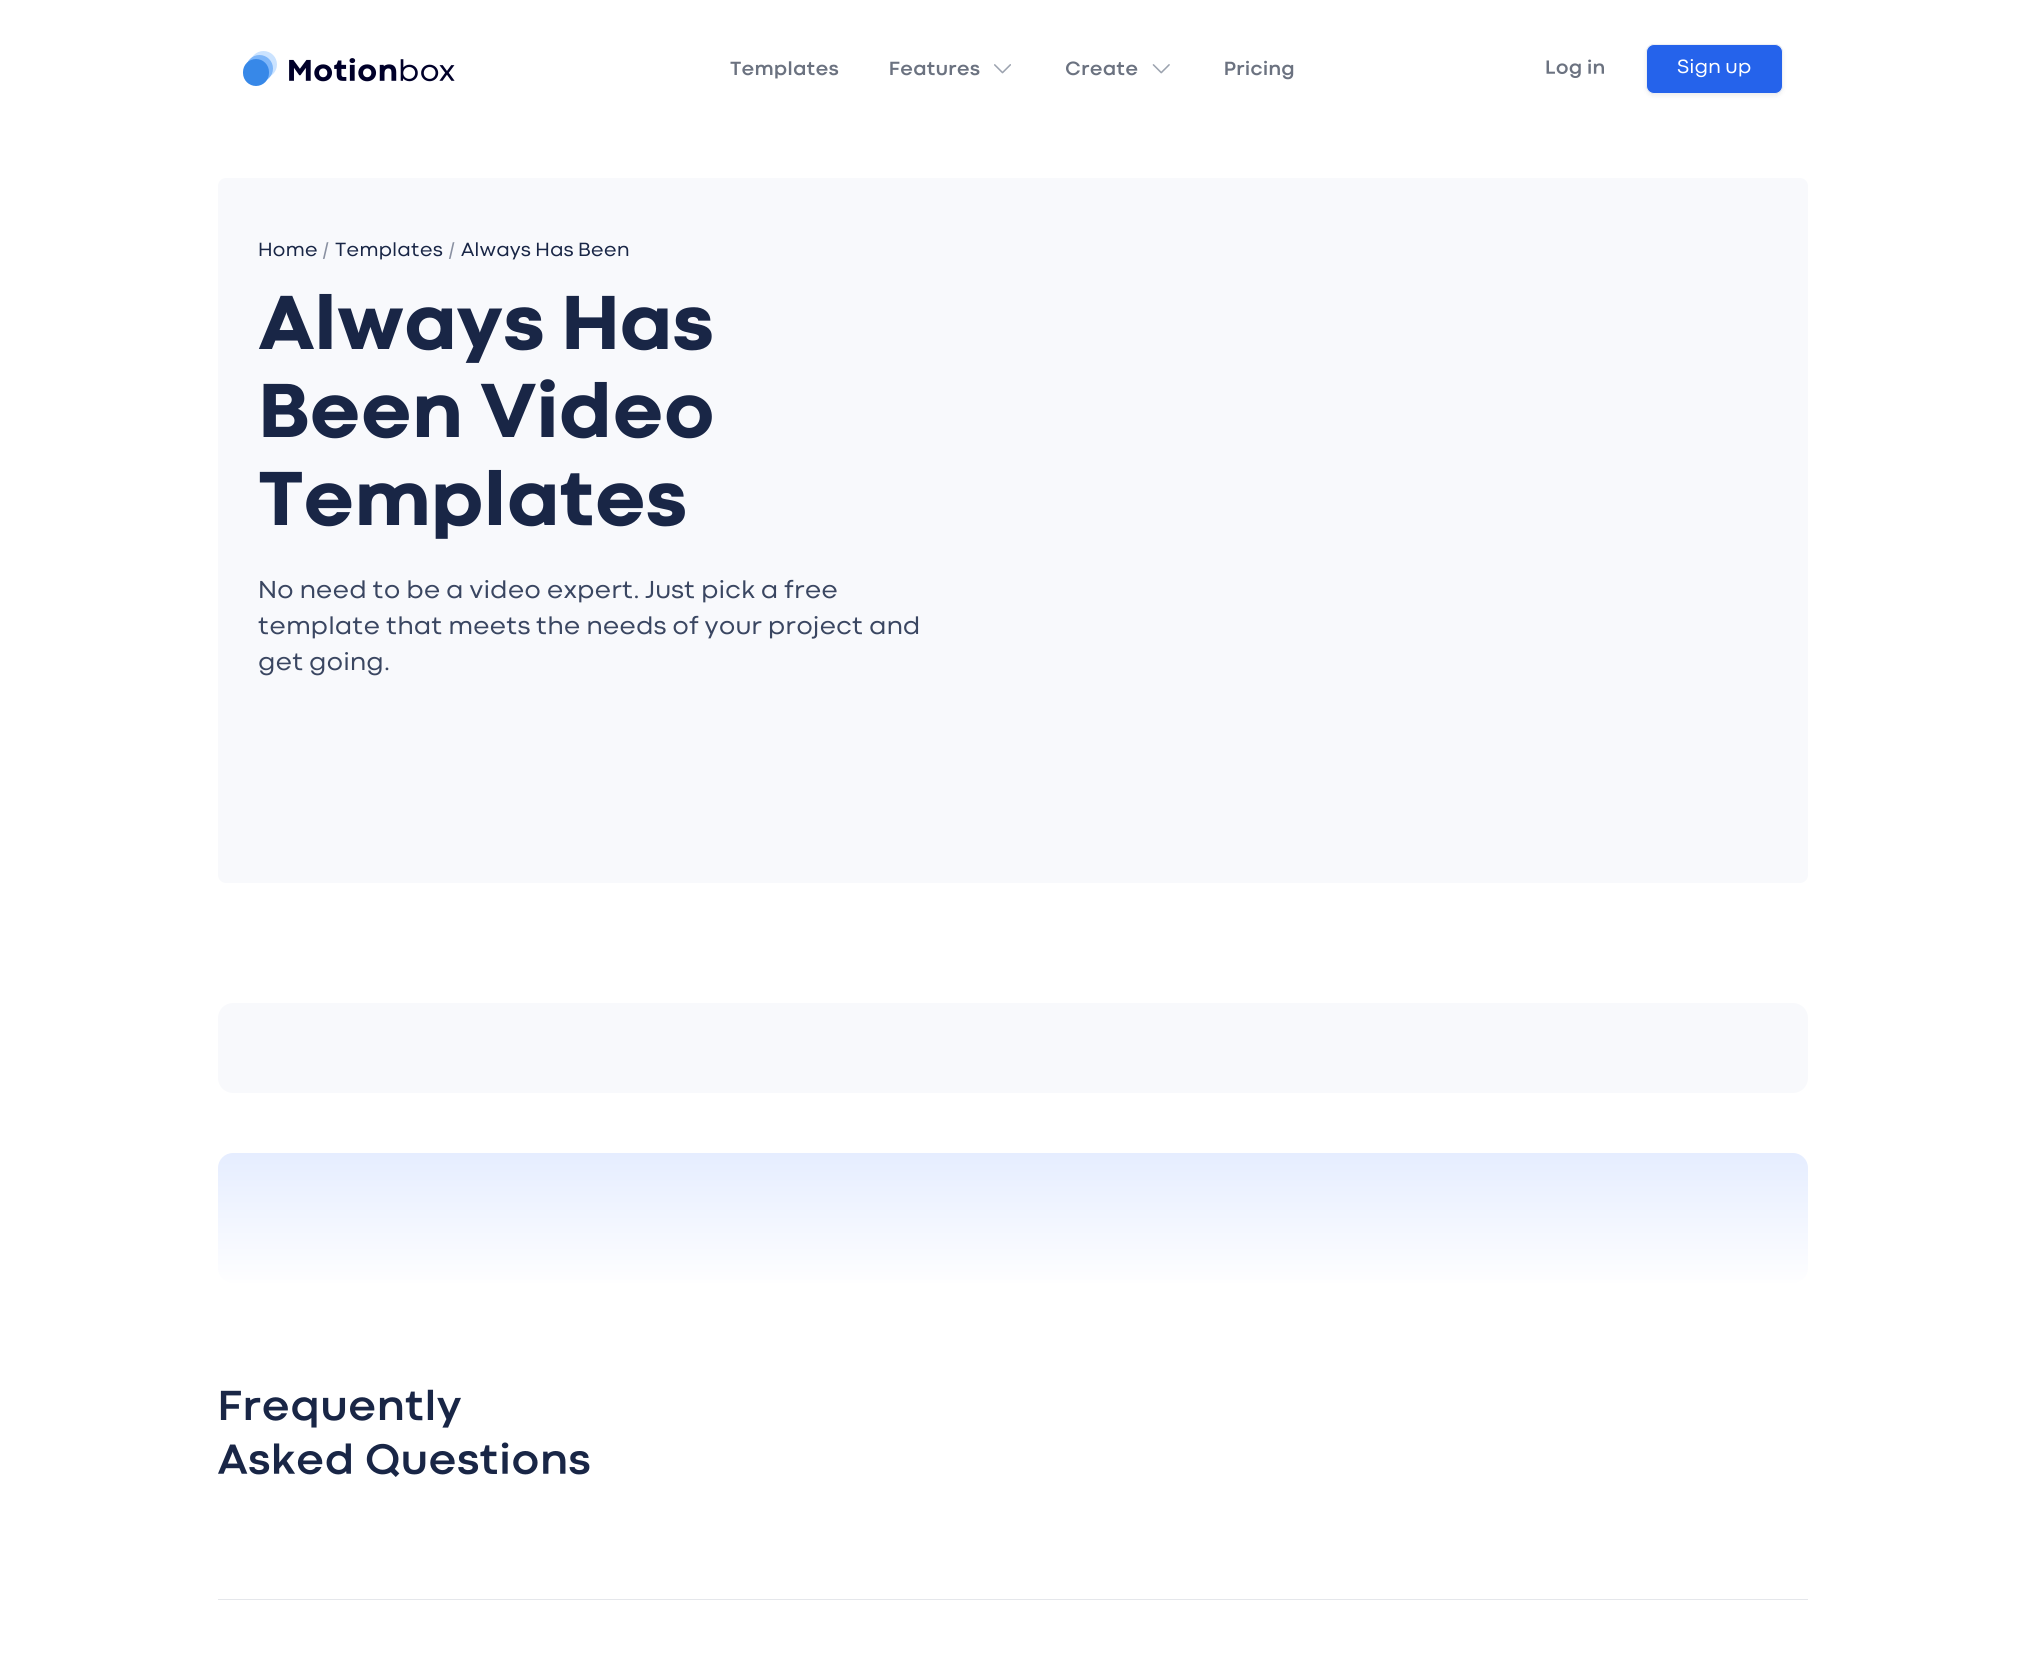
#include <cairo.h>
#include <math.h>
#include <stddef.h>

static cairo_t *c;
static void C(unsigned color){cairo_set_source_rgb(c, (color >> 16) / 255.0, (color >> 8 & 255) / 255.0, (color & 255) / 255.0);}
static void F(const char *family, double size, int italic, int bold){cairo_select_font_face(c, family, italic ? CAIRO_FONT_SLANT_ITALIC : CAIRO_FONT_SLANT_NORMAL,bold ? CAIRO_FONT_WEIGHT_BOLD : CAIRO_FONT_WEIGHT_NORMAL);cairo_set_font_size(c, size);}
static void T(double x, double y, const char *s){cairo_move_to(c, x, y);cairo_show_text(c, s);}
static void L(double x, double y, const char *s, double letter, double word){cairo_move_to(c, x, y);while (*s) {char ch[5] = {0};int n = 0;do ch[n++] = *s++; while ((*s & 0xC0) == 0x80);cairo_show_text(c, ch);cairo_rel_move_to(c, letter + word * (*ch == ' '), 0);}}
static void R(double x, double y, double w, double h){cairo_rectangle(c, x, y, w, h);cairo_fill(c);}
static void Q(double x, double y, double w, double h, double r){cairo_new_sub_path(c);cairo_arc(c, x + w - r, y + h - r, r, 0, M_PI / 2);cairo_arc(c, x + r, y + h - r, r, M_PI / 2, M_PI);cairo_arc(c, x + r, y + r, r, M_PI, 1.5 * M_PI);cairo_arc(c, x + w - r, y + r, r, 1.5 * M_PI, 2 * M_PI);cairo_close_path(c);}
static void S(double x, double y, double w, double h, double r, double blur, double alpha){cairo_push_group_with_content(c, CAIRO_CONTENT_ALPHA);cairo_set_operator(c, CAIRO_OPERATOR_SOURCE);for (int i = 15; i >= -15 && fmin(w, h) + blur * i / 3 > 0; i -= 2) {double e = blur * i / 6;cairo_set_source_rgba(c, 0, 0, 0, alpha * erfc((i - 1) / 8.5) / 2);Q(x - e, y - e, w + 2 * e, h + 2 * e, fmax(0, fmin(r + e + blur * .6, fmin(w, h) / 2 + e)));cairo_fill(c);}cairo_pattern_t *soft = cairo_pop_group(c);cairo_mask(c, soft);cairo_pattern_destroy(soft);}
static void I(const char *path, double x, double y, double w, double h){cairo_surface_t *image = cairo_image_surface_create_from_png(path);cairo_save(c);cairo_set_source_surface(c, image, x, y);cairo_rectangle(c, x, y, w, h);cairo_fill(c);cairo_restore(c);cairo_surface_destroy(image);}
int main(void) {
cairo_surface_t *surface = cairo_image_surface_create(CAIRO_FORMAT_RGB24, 2024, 1669);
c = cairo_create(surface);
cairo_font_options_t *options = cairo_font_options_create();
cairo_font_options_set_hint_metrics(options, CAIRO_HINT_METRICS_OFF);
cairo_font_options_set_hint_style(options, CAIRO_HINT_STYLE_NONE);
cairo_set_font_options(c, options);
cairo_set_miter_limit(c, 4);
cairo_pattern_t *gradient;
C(0xffffff);
cairo_paint(c);
I("1.png",243,51,212,35);
I("2.png",730,61,109,18);
I("3.png",890,61,90,15);
I("4.png",994,64,17,10);
I("5.png",1066,61,72,15);
I("6.png",1152,64,18,10);
I("7.png",1225,60,69,20);
I("8.png",1546,59,58,19);
C(0x000000);
S(1646,46,137,50,8,2.5,.07);
C(0x2563eb);
Q(1646.5,44.5,136,49,7.5);
cairo_fill_preserve(c);
C(0xedeff3);
cairo_set_line_width(c,1);
cairo_stroke(c);
F("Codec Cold",20,0,0);
C(0xffffff);
T(1677,73,"Sign up");
C(0xf8f9fc);
Q(218,178,1590,705,8);
cairo_fill(c);
C(0x192646);
T(258,256,"Home");
C(0x8990a1);
cairo_save(c);
cairo_translate(c,323,257);
cairo_rotate(c,-9 * M_PI / 180);
T(0,0,"/");
cairo_restore(c);
C(0x192646);
T(335,256,"Templates");
C(0x8990a1);
cairo_save(c);
cairo_translate(c,449,257);
cairo_rotate(c,-9 * M_PI / 180);
T(0,0,"/");
cairo_restore(c);
C(0x192646);
T(461,256,"Always Has Been");
F("Codec Cold ExtraBold",80,0,0);
L(258,349,"Always Has",-1.25,0);
L(258,437,"Been Video",-1.25,0);
L(258,525,"Templates",-1.25,0);
F("Codec Cold",25.7,0,0);
C(0x3a4661);
T(258,598,"No need to be a video expert. Just pick a free");
T(258,634,"template that meets the needs of your project and");
T(258,670,"get going.");
C(0xf8f9fc);
Q(218,1003,1590,90,15);
cairo_fill(c);
gradient = cairo_pattern_create_linear(1013,1152,1013,1283);
cairo_pattern_add_color_stop_rgba(gradient,0,0.898,0.929,1,1);
cairo_pattern_add_color_stop_rgba(gradient,1,0.996,0.996,1,1);
cairo_set_source(c,gradient);
cairo_pattern_destroy(gradient);
Q(218,1153,1590,130,15);
cairo_fill(c);
I("9.png",220,1389,241,39);
I("10.png",218,1442,372,35);
C(0xe5e7eb);
R(218,1599,1590,1);
cairo_surface_write_to_png(surface, "o.png");
cairo_font_options_destroy(options);
cairo_destroy(c);
cairo_surface_destroy(surface);
return 0;
}
